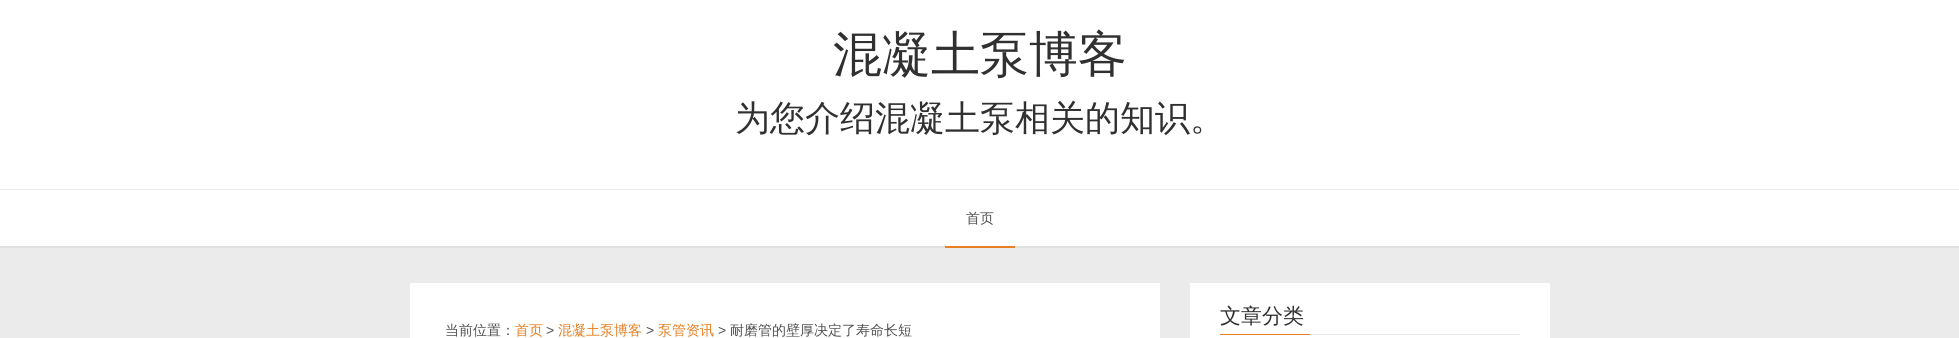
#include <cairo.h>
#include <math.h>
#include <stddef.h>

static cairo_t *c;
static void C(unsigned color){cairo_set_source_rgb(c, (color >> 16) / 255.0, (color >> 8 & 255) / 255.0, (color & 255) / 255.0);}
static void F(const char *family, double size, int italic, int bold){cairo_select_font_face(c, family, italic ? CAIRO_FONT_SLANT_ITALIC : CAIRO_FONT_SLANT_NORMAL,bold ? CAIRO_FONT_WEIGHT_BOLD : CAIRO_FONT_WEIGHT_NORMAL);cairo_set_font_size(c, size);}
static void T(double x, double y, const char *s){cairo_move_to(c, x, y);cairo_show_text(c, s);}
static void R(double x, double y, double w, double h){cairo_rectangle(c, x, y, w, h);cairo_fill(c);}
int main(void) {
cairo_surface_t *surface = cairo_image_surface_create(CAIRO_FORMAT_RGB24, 1959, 338);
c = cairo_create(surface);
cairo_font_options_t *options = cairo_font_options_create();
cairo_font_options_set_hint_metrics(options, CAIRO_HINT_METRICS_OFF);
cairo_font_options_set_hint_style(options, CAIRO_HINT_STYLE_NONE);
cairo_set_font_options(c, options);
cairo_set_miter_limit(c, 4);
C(0xebebeb);
cairo_paint(c);
C(0xffffff);
R(0,0,1959,189);
F("WenQuanYi Zen Hei Medium",49,0,0);
C(0x303030);
T(833,71,"混凝土泵博客");
F("WenQuanYi Zen Hei Medium",35,0,0);
T(735,130,"为您介绍混凝土泵相关的知识。");
C(0xffffff);
R(0,190,1959,56);
C(0xe1e1e1);
R(0,246,1959,2);
C(0xe67e22);
R(945,246,70,2);
F("WenQuanYi Zen Hei Medium",14,0,0);
C(0x505050);
T(966,223,"首页");
C(0xffffff);
R(1190,283,360,55);
C(0xebebeb);
R(1310,334,210,1);
F("WenQuanYi Zen Hei Medium",21,0,0);
C(0x303030);
T(1220,323,"文章分类");
C(0xe67e22);
R(1220,334,90,1);
C(0xffffff);
R(410,283,750,55);
F("WenQuanYi Zen Hei Medium",14,0,0);
C(0x505050);
T(445,335,"当前位置：");
C(0xe67e22);
T(515,335,"首页");
F("Liberation Sans",14,0,0);
C(0x505050);
T(546,335,">");
F("WenQuanYi Zen Hei Medium",14,0,0);
C(0xe67e22);
T(558,335,"混凝土泵博客");
F("Liberation Sans",14,0,0);
C(0x505050);
T(646,335,">");
F("WenQuanYi Zen Hei Medium",14,0,0);
C(0xe67e22);
T(658,335,"泵管资讯");
F("Liberation Sans",14,0,0);
C(0x505050);
T(718,335,">");
F("WenQuanYi Zen Hei Medium",14,0,0);
T(730,335,"耐磨管的壁厚决定了寿命长短");
cairo_surface_write_to_png(surface, "o.png");
cairo_font_options_destroy(options);
cairo_destroy(c);
cairo_surface_destroy(surface);
return 0;
}
